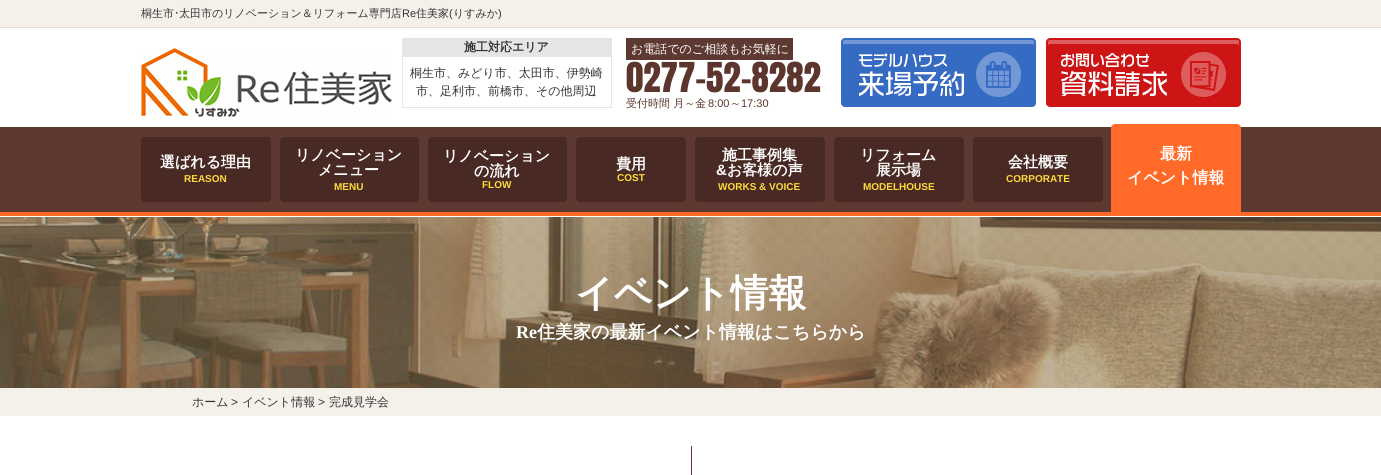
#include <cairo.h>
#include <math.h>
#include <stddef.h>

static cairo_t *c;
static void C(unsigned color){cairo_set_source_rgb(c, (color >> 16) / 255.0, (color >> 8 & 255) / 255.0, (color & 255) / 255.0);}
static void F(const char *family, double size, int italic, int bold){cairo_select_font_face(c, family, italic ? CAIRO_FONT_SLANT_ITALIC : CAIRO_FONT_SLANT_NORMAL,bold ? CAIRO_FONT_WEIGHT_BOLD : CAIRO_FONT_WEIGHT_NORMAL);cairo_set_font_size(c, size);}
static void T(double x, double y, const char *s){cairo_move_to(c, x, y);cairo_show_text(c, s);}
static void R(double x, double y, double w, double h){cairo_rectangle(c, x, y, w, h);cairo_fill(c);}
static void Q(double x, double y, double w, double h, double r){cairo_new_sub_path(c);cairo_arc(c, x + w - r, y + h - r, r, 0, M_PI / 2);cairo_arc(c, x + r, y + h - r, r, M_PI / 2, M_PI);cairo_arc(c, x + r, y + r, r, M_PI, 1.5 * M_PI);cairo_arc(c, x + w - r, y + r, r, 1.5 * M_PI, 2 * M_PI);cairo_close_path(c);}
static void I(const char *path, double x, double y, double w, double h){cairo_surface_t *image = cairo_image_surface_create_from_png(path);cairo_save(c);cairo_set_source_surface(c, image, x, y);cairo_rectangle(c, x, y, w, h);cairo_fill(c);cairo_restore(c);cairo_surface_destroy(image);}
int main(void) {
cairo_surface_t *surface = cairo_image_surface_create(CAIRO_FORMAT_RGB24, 1381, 475);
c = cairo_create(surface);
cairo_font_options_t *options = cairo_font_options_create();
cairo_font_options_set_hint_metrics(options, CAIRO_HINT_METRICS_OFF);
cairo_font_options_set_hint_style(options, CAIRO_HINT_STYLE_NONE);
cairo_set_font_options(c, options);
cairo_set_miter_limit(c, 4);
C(0xffffff);
cairo_paint(c);
C(0xf5f1ea);
R(0,0,1381,27);
C(0xe1ddd5);
R(0,27,1381,1);
F("WenQuanYi Zen Hei Medium",11,0,0);
C(0x333333);
T(141,17,"桐生市");
F("IPAPGothic",11,0,0);
T(174,17,"･");
F("WenQuanYi Zen Hei Medium",11,0,0);
T(179,17,"太田市のリノベーション＆リフォーム専門店");
F("Liberation Sans",11,0,0);
T(402,17,"Re");
F("WenQuanYi Zen Hei Medium",11,0,0);
T(416,17,"住美家");
F("Liberation Sans",11,0,0);
T(449,17,"(");
F("WenQuanYi Zen Hei Medium",11,0,0);
T(453,17,"りすみか");
F("Liberation Sans",11,0,0);
T(498,17,")");
I("1.png",141,48,251,69);
C(0xe5e5e5);
R(402,38,210,18);
F("WenQuanYi Zen Hei",12,0,1);
C(0x333333);
T(464,51,"施工対応エリア");
cairo_rectangle(c,402.5,56.5,209,51);
C(0xe5e5e5);
cairo_set_line_width(c,1);
cairo_stroke(c);
F("WenQuanYi Zen Hei Medium",12,0,0);
C(0x333333);
T(410,77,"桐生市、みどり市、太田市、伊勢崎");
T(416,95,"市、足利市、前橋市、その他周辺");
C(0x5e3931);
R(626,38,167,22);
C(0xffffff);
T(631,53,"お電話でのご相談もお気軽に");
F("Anton",35,0,0);
C(0x5c352c);
T(626,92,"0277-52-8282");
F("WenQuanYi Zen Hei Medium",11,0,0);
T(626,107,"受付時間 月～金");
F("Liberation Sans",11,0,0);
T(708,107,"8:00");
F("WenQuanYi Zen Hei Medium",11,0,0);
T(730,107,"～");
F("Liberation Sans",11,0,0);
T(741,107,"17:30");
I("2.png",841,38,195,69);
I("3.png",1046,38,195,69);
C(0x5e3931);
R(0,127,1381,85);
C(0xff6a28);
R(0,212,1381,4);
C(0x492923);
Q(141,137,130,65,4);
cairo_fill(c);
F("WenQuanYi Zen Hei",15,0,1);
C(0xffffff);
T(160,167,"選ばれる理由");
F("Liberation Sans",10,0,1);
C(0xfedb3c);
T(184,182,"REASON");
C(0x492923);
Q(280,137,139,65,4);
cairo_fill(c);
F("WenQuanYi Zen Hei",15,0,1);
C(0xffffff);
T(295,160,"リノベーション");
T(318,175,"メニュー");
F("Liberation Sans",10,0,1);
C(0xfedb3c);
T(334,190,"MENU");
C(0x492923);
Q(428,137,139,65,4);
cairo_fill(c);
F("WenQuanYi Zen Hei",15,0,1);
C(0xffffff);
T(443,161,"リノベーション");
T(474,176,"の流れ");
F("Liberation Sans",10,0,1);
C(0xfedb3c);
T(482,188,"FLOW");
C(0x492923);
Q(576,137,110,65,4);
cairo_fill(c);
F("WenQuanYi Zen Hei",15,0,1);
C(0xffffff);
T(616,169,"費用");
F("Liberation Sans",10,0,1);
C(0xfedb3c);
T(617,181,"COST");
C(0x492923);
Q(695,137,130,65,4);
cairo_fill(c);
F("WenQuanYi Zen Hei",15,0,1);
C(0xffffff);
T(722,160,"施工事例集");
F("Liberation Sans",15,0,1);
T(716,175,"&");
F("WenQuanYi Zen Hei",15,0,1);
T(727,175,"お客様の声");
F("Liberation Sans",10,0,1);
C(0xfedb3c);
T(718,190,"WORKS & VOICE");
C(0x492923);
Q(834,137,130,65,4);
cairo_fill(c);
F("WenQuanYi Zen Hei",15,0,1);
C(0xffffff);
T(860,160,"リフォーム");
T(876,175,"展示場");
F("Liberation Sans",10,0,1);
C(0xfedb3c);
T(863,190,"MODELHOUSE");
C(0x492923);
Q(973,137,130,65,4);
cairo_fill(c);
F("WenQuanYi Zen Hei",15,0,1);
C(0xffffff);
T(1008,167,"会社概要");
F("Liberation Sans",10,0,1);
C(0xfedb3c);
T(1006,182,"CORPORATE");
C(0xff6a28);
R(1111,137,130,65);
cairo_new_path(c);
cairo_move_to(c,1115,124);
cairo_line_to(c,1237,124);
cairo_curve_to(c,1239,124,1241,126,1241,128);
cairo_line_to(c,1241,137);
cairo_line_to(c,1111,137);
cairo_line_to(c,1111,128);
cairo_curve_to(c,1111,126,1113,124,1115,124);
cairo_close_path(c);
cairo_fill(c);
F("WenQuanYi Zen Hei",16,0,1);
C(0xffffff);
T(1160,159,"最新");
T(1127,183,"イベント情報");
C(0xff6a28);
cairo_new_path(c);
cairo_move_to(c,1111,202);
cairo_line_to(c,1241,202);
cairo_line_to(c,1241,211);
cairo_curve_to(c,1241,213,1239,215,1237,215);
cairo_line_to(c,1115,215);
cairo_curve_to(c,1113,215,1111,213,1111,211);
cairo_close_path(c);
cairo_fill(c);
I("4.png",0,217,1381,171);
F("WenQuanYi Zen Hei",38,0,1);
C(0xffffff);
T(575,306,"イベント情報");
F("Liberation Serif",18,0,1);
T(516,338,"Re");
F("WenQuanYi Zen Hei",18,0,1);
T(537,338,"住美家の最新イベント情報はこちらから");
C(0xf4f1ea);
R(0,388,1381,28);
F("WenQuanYi Zen Hei Medium",12,0,0);
C(0x333333);
T(192,406,"ホーム");
F("Liberation Sans",12,0,0);
T(231,406,">");
F("WenQuanYi Zen Hei Medium",12,0,0);
T(242,406,"イベント情報");
F("Liberation Sans",12,0,0);
T(318,406,">");
F("WenQuanYi Zen Hei Medium",12,0,0);
T(329,406,"完成見学会");
C(0x5e3931);
R(691,446,1,29);
cairo_surface_write_to_png(surface, "o.png");
cairo_font_options_destroy(options);
cairo_destroy(c);
cairo_surface_destroy(surface);
return 0;
}
